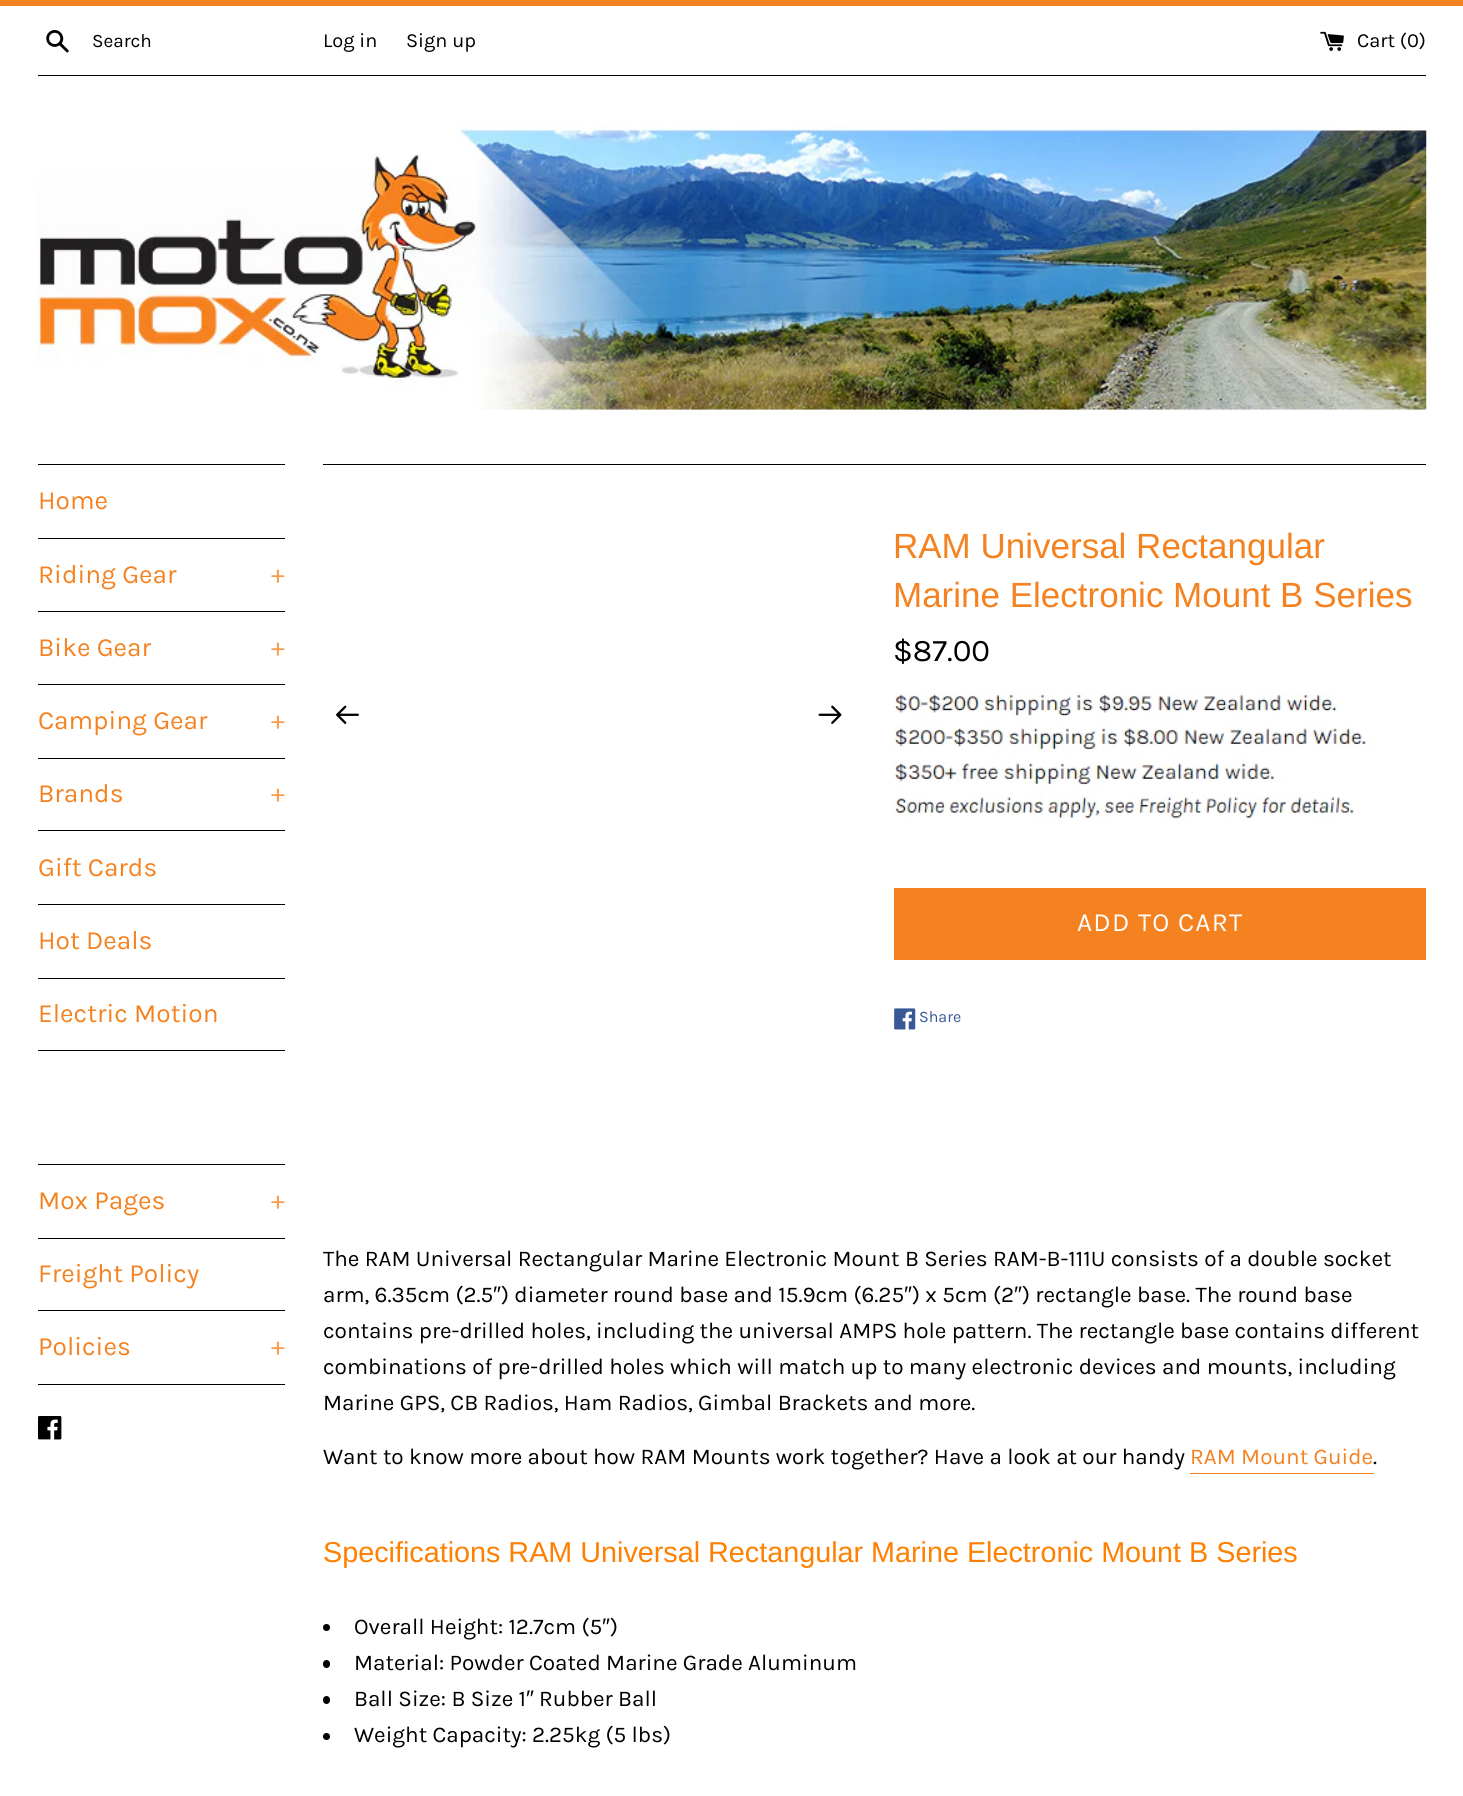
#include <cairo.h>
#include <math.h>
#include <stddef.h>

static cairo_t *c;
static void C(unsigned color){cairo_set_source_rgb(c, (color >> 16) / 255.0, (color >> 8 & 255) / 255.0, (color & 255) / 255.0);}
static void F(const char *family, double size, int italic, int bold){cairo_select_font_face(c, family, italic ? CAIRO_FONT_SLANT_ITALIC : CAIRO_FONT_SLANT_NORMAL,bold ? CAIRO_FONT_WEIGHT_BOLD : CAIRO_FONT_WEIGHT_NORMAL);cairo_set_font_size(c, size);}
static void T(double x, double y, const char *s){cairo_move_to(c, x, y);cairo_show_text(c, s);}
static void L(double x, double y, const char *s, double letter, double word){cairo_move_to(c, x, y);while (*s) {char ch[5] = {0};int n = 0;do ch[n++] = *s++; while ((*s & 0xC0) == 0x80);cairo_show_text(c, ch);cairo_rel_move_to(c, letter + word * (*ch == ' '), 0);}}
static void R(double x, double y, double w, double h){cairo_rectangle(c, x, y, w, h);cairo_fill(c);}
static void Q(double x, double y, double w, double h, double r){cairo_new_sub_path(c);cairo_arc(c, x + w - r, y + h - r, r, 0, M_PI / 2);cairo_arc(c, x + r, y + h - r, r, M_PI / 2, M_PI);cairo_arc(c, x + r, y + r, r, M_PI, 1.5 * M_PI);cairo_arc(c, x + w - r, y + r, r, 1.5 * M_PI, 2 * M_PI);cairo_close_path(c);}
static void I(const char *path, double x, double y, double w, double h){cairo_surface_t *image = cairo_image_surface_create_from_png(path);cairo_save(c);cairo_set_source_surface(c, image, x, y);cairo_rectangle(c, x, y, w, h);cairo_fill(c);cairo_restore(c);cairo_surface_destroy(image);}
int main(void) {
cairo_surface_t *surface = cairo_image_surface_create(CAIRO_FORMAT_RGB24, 1463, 1796);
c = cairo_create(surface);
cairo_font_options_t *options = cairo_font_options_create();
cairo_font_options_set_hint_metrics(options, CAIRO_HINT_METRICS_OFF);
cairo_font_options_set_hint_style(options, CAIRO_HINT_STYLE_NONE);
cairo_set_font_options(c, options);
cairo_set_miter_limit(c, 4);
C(0xffffff);
cairo_paint(c);
C(0xf58220);
R(0,0,1463,6);
I("1.png",46,30,23,23);
F("Karla",19,0,0);
C(0x000000);
T(92,47,"Search");
F("Karla",20,0,0);
T(323,47,"Log in");
T(406,47,"Sign up");
I("2.png",1320,31,24,20);
T(1357,47,"Cart (0)");
R(38,75,1388,1);
I("3.png",37,121,1390,290);
R(38,464,247,1);
R(38,538,247,1);
F("Karla",26.25,0,0);
C(0xf58220);
T(38,509,"Home");
C(0x000000);
R(38,611,247,1);
C(0xf58220);
T(38,583,"Riding Gear");
C(0xf79b4d);
T(271,583,"+");
C(0x000000);
R(38,684,247,1);
C(0xf58220);
T(38,656,"Bike Gear");
C(0xf79b4d);
T(271,656,"+");
C(0x000000);
R(38,758,247,1);
C(0xf58220);
T(38,729,"Camping Gear");
C(0xf79b4d);
T(271,729,"+");
C(0x000000);
R(38,830,247,1);
C(0xf58220);
T(38,802,"Brands");
C(0xf79b4d);
T(271,802,"+");
C(0x000000);
R(38,904,247,1);
C(0xf58220);
T(38,876,"Gift Cards");
C(0x000000);
R(38,978,247,1);
C(0xf58220);
T(38,949,"Hot Deals");
C(0x000000);
R(38,1050,247,1);
C(0xf58220);
T(38,1022,"Electric Motion");
C(0x000000);
R(38,1164,247,1);
R(38,1238,247,1);
C(0xf58220);
T(38,1209,"Mox Pages");
C(0xf79b4d);
T(271,1209,"+");
C(0x000000);
R(38,1310,247,1);
C(0xf58220);
T(38,1282,"Freight Policy");
C(0x000000);
R(38,1384,247,1);
C(0xf58220);
T(38,1355,"Policies");
C(0xf79b4d);
T(271,1355,"+");
I("4.png",38,1416,24,24);
C(0x000000);
R(323,464,1103,1);
I("5.png",336,705,23,19);
I("6.png",818,705,24,19);
F("Arimo",35,0,0);
C(0xf58220);
T(893,558,"RAM Universal Rectangular");
T(893,607,"Marine Electronic Mount B Series");
F("Karla",31.5,0,0);
C(0x000000);
T(893,661,"$87.00");
I("7.png",893,692,481,130);
C(0xf58220);
R(894,888,532,72);
F("Karla",26.25,0,0);
C(0xffffff);
L(1077,931,"ADD TO CART",1.25,0);
I("8.png",894,1008,22,22);
F("Karla",16,0,0);
C(0x385898);
T(919,1022,"Share");
F("Karla",22.5,0,0);
C(0x000000);
T(323,1266,"The RAM Universal Rectangular Marine Electronic Mount B Series RAM-B-111U consists of a double socket");
T(323,1302,"arm, 6.35cm (2.5");
F("Liberation Sans",22.5,0,0);
T(493,1302,"″");
F("Karla",22.5,0,0);
T(501,1302,") diameter round base and 15.9cm (6.25");
F("Liberation Sans",22.5,0,0);
T(904,1302,"″");
F("Karla",22.5,0,0);
T(912,1302,") x 5cm (2");
F("Liberation Sans",22.5,0,0);
T(1014,1302,"″");
F("Karla",22.5,0,0);
T(1022,1302,") rectangle base. The round base");
T(323,1338,"contains pre-drilled holes, including the universal AMPS hole pattern. The rectangle base contains different");
T(323,1374,"combinations of pre-drilled holes which will match up to many electronic devices and mounts, including");
T(323,1410,"Marine GPS, CB Radios, Ham Radios, Gimbal Brackets and more.");
T(323,1464,"Want to know more about how RAM Mounts work together? Have a look at our handy");
C(0xf58220);
T(1190,1464,"RAM Mount Guide");
R(1190,1473,184,1);
C(0x000000);
T(1373,1464,".");
F("Arimo",28.75,0,0);
C(0xff8000);
T(323,1562,"Specifications RAM Universal Rectangular Marine Electronic Mount B Series");
F("Karla",22.5,0,0);
C(0x000000);
T(354,1634,"Overall Height: 12.7cm (5");
F("Liberation Sans",22.5,0,0);
T(602,1634,"″");
F("Karla",22.5,0,0);
T(610,1634,")");
cairo_new_path(c);
cairo_arc(c,326.5,1627.5,3.5,0,2 * M_PI);
cairo_fill(c);
Q(323,1660,7,8,3.5);
cairo_fill(c);
T(354,1670,"Material: Powder Coated Marine Grade Aluminum");
Q(323,1696,7,8,3.5);
cairo_fill(c);
T(354,1706,"Ball Size: B Size 1");
F("Liberation Sans",22.5,0,0);
T(526,1706,"″");
F("Karla",22.5,0,0);
T(539,1706,"Rubber Ball");
cairo_new_path(c);
cairo_arc(c,326.5,1736.5,3.5,0,2 * M_PI);
cairo_fill(c);
T(354,1742,"Weight Capacity: 2.25kg (5 lbs)");
cairo_surface_write_to_png(surface, "o.png");
cairo_font_options_destroy(options);
cairo_destroy(c);
cairo_surface_destroy(surface);
return 0;
}
